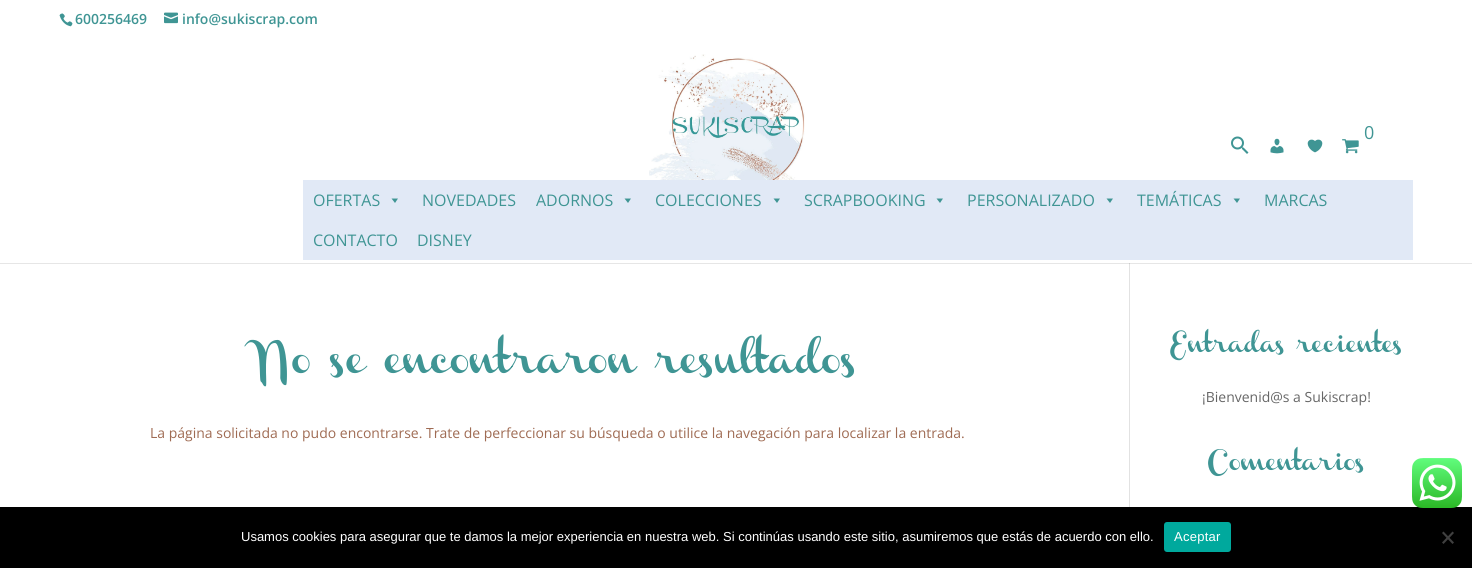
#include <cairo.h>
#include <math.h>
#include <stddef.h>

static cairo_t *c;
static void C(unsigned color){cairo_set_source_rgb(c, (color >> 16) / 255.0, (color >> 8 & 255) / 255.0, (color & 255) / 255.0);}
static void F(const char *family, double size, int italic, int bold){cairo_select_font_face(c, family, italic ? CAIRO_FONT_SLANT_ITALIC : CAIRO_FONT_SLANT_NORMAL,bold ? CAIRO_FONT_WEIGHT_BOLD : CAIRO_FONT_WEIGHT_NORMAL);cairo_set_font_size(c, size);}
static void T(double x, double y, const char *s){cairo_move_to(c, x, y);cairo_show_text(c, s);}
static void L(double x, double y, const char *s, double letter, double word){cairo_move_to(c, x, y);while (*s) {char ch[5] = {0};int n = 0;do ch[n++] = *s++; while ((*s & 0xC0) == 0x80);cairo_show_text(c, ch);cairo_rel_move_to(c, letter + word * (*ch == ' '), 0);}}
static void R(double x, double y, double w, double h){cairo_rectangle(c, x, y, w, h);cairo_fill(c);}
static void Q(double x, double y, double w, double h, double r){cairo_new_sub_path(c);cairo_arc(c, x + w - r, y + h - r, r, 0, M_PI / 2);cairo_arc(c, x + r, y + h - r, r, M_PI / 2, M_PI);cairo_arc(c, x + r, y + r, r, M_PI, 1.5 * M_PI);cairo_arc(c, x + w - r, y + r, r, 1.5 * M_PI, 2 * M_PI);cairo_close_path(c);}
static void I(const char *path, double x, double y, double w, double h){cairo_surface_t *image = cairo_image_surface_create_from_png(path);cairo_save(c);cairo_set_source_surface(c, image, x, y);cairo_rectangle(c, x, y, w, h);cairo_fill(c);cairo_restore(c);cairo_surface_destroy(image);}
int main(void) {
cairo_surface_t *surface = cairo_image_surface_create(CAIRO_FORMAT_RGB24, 1472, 568);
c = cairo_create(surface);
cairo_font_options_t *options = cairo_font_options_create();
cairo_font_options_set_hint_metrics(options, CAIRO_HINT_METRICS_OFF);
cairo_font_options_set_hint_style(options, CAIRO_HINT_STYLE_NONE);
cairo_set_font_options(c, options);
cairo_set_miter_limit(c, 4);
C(0xffffff);
cairo_paint(c);
C(0xe6e6e6);
R(0,263,1472,1);
I("1.png",59,13,14,14);
F("Open Sans SemiBold",14,0,0);
C(0x3f9594);
T(75,24,"600256469");
I("2.png",164,12,14,12);
T(182,24,"info@sukiscrap.com");
I("3.png",649,54,162,126);
F("Open Sans",18,0,0);
T(1364,139,"0");
I("4.png",1342,139,17,15);
I("5.png",1231,136,18,18);
I("6.png",1270,138,14,16);
I("7.png",1307,139,16,14);
C(0xe1e9f6);
R(303,180,1110,80);
F("Open Sans",16,0,0);
C(0x3f9594);
T(313,206,"OFERTAS");
cairo_new_path(c);
cairo_move_to(c,398,198.5);
cairo_line_to(c,395,203);
cairo_line_to(c,391.5,198.5);
cairo_close_path(c);
cairo_fill(c);
T(422,206,"NOVEDADES");
T(536,206,"ADORNOS");
cairo_new_path(c);
cairo_move_to(c,631,198.5);
cairo_line_to(c,628,203);
cairo_line_to(c,624.5,198.5);
cairo_close_path(c);
cairo_fill(c);
T(655,206,"COLECCIONES");
cairo_new_path(c);
cairo_move_to(c,780,198.5);
cairo_line_to(c,777,203);
cairo_line_to(c,773.5,198.5);
cairo_close_path(c);
cairo_fill(c);
T(804,206,"SCRAPBOOKING");
cairo_new_path(c);
cairo_move_to(c,943,198.5);
cairo_line_to(c,940,203);
cairo_line_to(c,936.5,198.5);
cairo_close_path(c);
cairo_fill(c);
T(967,206,"PERSONALIZADO");
cairo_new_path(c);
cairo_move_to(c,1113,198.5);
cairo_line_to(c,1110,203);
cairo_line_to(c,1106.5,198.5);
cairo_close_path(c);
cairo_fill(c);
T(1137,206,"TEMÁTICAS");
cairo_new_path(c);
cairo_move_to(c,1240,198.5);
cairo_line_to(c,1237,203);
cairo_line_to(c,1233.5,198.5);
cairo_close_path(c);
cairo_fill(c);
T(1264,206,"MARCAS");
T(313,246,"CONTACTO");
T(417,246,"DISNEY");
C(0xe2e2e2);
R(1129,263,1,244);
C(0xcbcbcb);
R(1129,263,1,1);
F("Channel",30,0,0);
C(0x3f9594);
T(258,373,"No se encontraron resultados");
F("Open Sans",14,0,0);
C(0x9f6b53);
T(150,438,"La página solicitada no pudo encontrarse. Trate de perfeccionar su búsqueda o utilice la navegación para localizar la entrada.");
F("Channel",18,0,0);
C(0x3f9594);
T(1170,352,"Entradas recientes");
F("Open Sans",14,0,0);
C(0x666666);
T(1202,402,"¡Bienvenid@s a Sukiscrap!");
F("Channel",18,0,0);
C(0x3f9594);
T(1208,470,"Comentarios");
C(0x000000);
R(0,507,1472,61);
I("8.png",1412,458,50,50);
F("Liberation Sans",13,0,0);
C(0xffffff);
T(241,541,"Usamos cookies para asegurar que te damos la mejor experiencia en nuestra web. Si continúas usando este sitio, asumiremos que estás de acuerdo con ello.");
C(0x00a99d);
Q(1164,522,67,30,3);
cairo_fill(c);
C(0xffffff);
L(1174,541,"Aceptar",.25,0);
C(0x404040);
cairo_new_path(c);
cairo_move_to(c,1452.5,531.5);
cairo_line_to(c,1454,533);
cairo_line_to(c,1443.5,544);
cairo_line_to(c,1442,542.5);
cairo_close_path(c);
cairo_fill(c);
cairo_new_path(c);
cairo_move_to(c,1442,533);
cairo_line_to(c,1443.5,531.5);
cairo_line_to(c,1454,542.5);
cairo_line_to(c,1452.5,544);
cairo_close_path(c);
cairo_fill(c);
cairo_surface_write_to_png(surface, "o.png");
cairo_font_options_destroy(options);
cairo_destroy(c);
cairo_surface_destroy(surface);
return 0;
}
